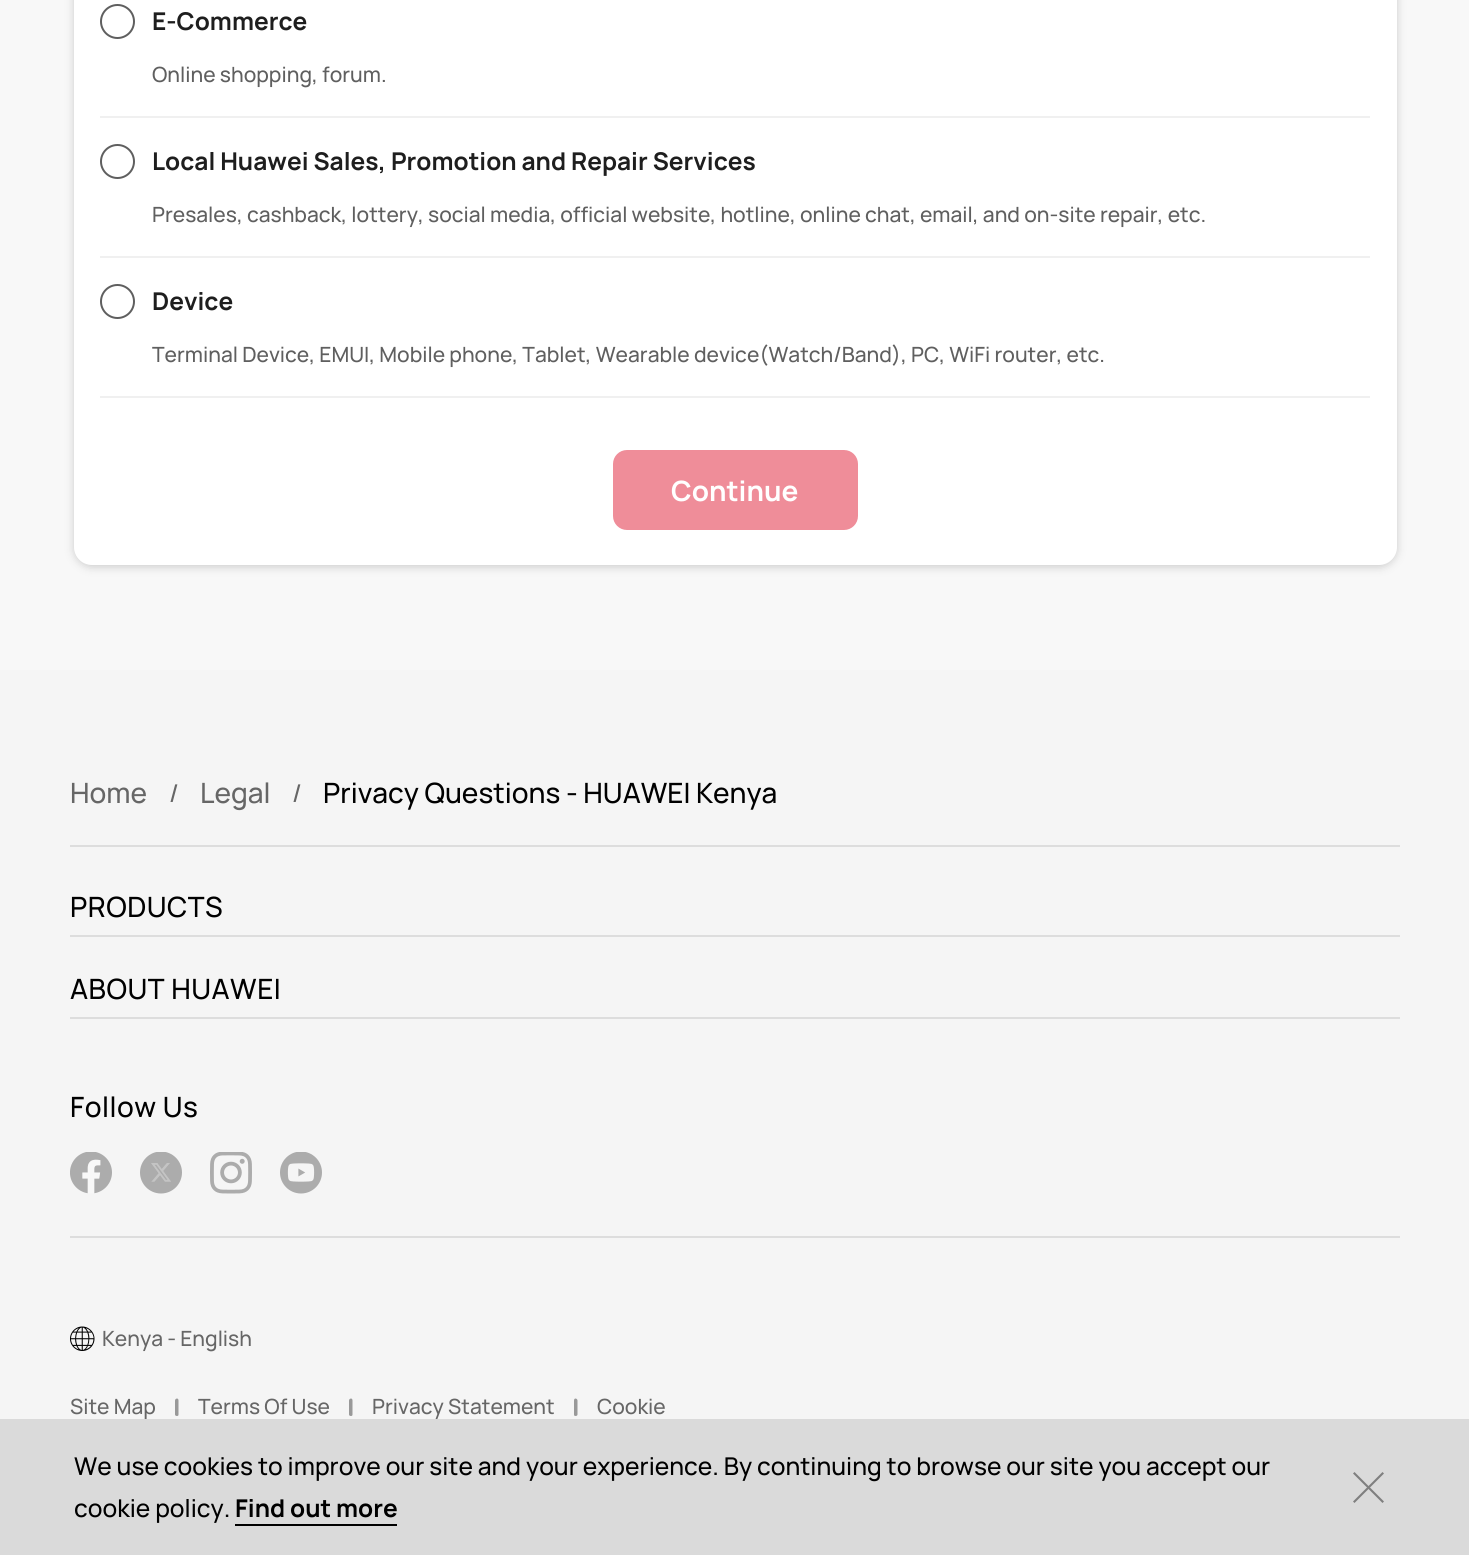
#include <cairo.h>
#include <math.h>
#include <stddef.h>

static cairo_t *c;
static void C(unsigned color){cairo_set_source_rgb(c, (color >> 16) / 255.0, (color >> 8 & 255) / 255.0, (color & 255) / 255.0);}
static void F(const char *family, double size, int italic, int bold){cairo_select_font_face(c, family, italic ? CAIRO_FONT_SLANT_ITALIC : CAIRO_FONT_SLANT_NORMAL,bold ? CAIRO_FONT_WEIGHT_BOLD : CAIRO_FONT_WEIGHT_NORMAL);cairo_set_font_size(c, size);}
static void T(double x, double y, const char *s){cairo_move_to(c, x, y);cairo_show_text(c, s);}
static void L(double x, double y, const char *s, double letter, double word){cairo_move_to(c, x, y);while (*s) {char ch[5] = {0};int n = 0;do ch[n++] = *s++; while ((*s & 0xC0) == 0x80);cairo_show_text(c, ch);cairo_rel_move_to(c, letter + word * (*ch == ' '), 0);}}
static void R(double x, double y, double w, double h){cairo_rectangle(c, x, y, w, h);cairo_fill(c);}
static void Q(double x, double y, double w, double h, double r){cairo_new_sub_path(c);cairo_arc(c, x + w - r, y + h - r, r, 0, M_PI / 2);cairo_arc(c, x + r, y + h - r, r, M_PI / 2, M_PI);cairo_arc(c, x + r, y + r, r, M_PI, 1.5 * M_PI);cairo_arc(c, x + w - r, y + r, r, 1.5 * M_PI, 2 * M_PI);cairo_close_path(c);}
static void S(double x, double y, double w, double h, double r, double blur, double alpha){cairo_push_group_with_content(c, CAIRO_CONTENT_ALPHA);cairo_set_operator(c, CAIRO_OPERATOR_SOURCE);for (int i = 15; i >= -15 && fmin(w, h) + blur * i / 3 > 0; i -= 2) {double e = blur * i / 6;cairo_set_source_rgba(c, 0, 0, 0, alpha * erfc((i - 1) / 8.5) / 2);Q(x - e, y - e, w + 2 * e, h + 2 * e, fmax(0, fmin(r + e + blur * .6, fmin(w, h) / 2 + e)));cairo_fill(c);}cairo_pattern_t *soft = cairo_pop_group(c);cairo_mask(c, soft);cairo_pattern_destroy(soft);}
static void I(const char *path, double x, double y, double w, double h){cairo_surface_t *image = cairo_image_surface_create_from_png(path);cairo_save(c);cairo_set_source_surface(c, image, x, y);cairo_rectangle(c, x, y, w, h);cairo_fill(c);cairo_restore(c);cairo_surface_destroy(image);}
int main(void) {
cairo_surface_t *surface = cairo_image_surface_create(CAIRO_FORMAT_RGB24, 1469, 1555);
c = cairo_create(surface);
cairo_font_options_t *options = cairo_font_options_create();
cairo_font_options_set_hint_metrics(options, CAIRO_HINT_METRICS_OFF);
cairo_font_options_set_hint_style(options, CAIRO_HINT_STYLE_NONE);
cairo_set_font_options(c, options);
cairo_set_miter_limit(c, 4);
C(0xf8f8f8);
cairo_paint(c);
C(0xcccccc);
S(74,-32,1323,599,18,4.5,1);
C(0xffffff);
Q(74,-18,1323,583,18);
cairo_fill(c);
C(0xf0f0f0);
R(100,116,1270,2);
cairo_arc(c,117.5,21.5,16.5,0,2 * M_PI);
C(0x5f5f5f);
cairo_stroke(c);
F("Manrope",24.5,0,1);
C(0x1e1e1e);
T(152,30,"E-Commerce");
F("Manrope Medium",21,0,0);
C(0x5f5f5f);
T(152,82,"Online shopping, forum.");
C(0xf0f0f0);
R(100,256,1270,2);
cairo_new_path(c);
cairo_arc(c,117.5,161.5,16.5,0,2 * M_PI);
C(0x5f5f5f);
cairo_stroke(c);
F("Manrope",24.5,0,1);
C(0x1e1e1e);
T(152,170,"Local Huawei Sales, Promotion and Repair Services");
F("Manrope Medium",21,0,0);
C(0x5f5f5f);
T(152,222,"Presales, cashback, lottery, social media, official website, hotline, online chat, email, and on-site repair, etc.");
C(0xf0f0f0);
R(100,396,1270,2);
cairo_new_path(c);
cairo_arc(c,117.5,301.5,16.5,0,2 * M_PI);
C(0x5f5f5f);
cairo_stroke(c);
F("Manrope",24.5,0,1);
C(0x1e1e1e);
T(152,310,"Device");
F("Manrope Medium",21,0,0);
C(0x5f5f5f);
T(152,362,"Terminal Device, EMUI, Mobile phone, Tablet, Wearable device(Watch/Band), PC, WiFi router, etc.");
C(0xef8d99);
Q(613,450,245,80,14);
cairo_fill(c);
F("Manrope",28,0,1);
C(0xffffff);
T(671,501,"Continue");
C(0xf5f5f5);
R(0,670,1469,885);
C(0xdddddd);
R(70,845,1330,2);
F("Manrope Medium",28,0,0);
C(0x666666);
T(70,803,"Home");
F("Manrope Medium",24.5,0,0);
T(169,802,"/");
F("Manrope Medium",28,0,0);
T(200,803,"Legal");
F("Manrope Medium",24.5,0,0);
T(292,802,"/");
F("Manrope Medium",28,0,0);
C(0x000000);
T(323,803,"Privacy Questions - HUAWEI Kenya");
C(0xdddddd);
R(70,935,1330,2);
C(0x000000);
L(70,917,"PRODUCTS",.5,0);
C(0xdddddd);
R(70,1017,1330,2);
C(0x000000);
L(70,999,"ABOUT HUAWEI",.5,0);
C(0xdddddd);
R(70,1236,1330,2);
C(0x000000);
L(70,1117,"Follow Us",.5,0);
I("1.png",70,1152,42,42);
I("2.png",140,1152,42,42);
I("3.png",210,1152,42,42);
I("4.png",280,1152,42,42);
I("5.png",70,1326,25,25);
F("Manrope Medium",21,0,0);
C(0x666666);
T(102,1346,"Kenya - English");
T(70,1414,"Site Map");
C(0x999999);
cairo_new_path(c);
cairo_move_to(c,178.5,1400.5);
cairo_line_to(c,178.5,1414.5);
cairo_curve_to(c,178.5,1415.5,178,1416,177,1416);
cairo_curve_to(c,176,1416,175,1415.5,175,1414.5);
cairo_line_to(c,175,1400.5);
cairo_curve_to(c,175,1399.5,176,1398.5,177,1398.5);
cairo_curve_to(c,178,1398.5,178.5,1399.5,178.5,1400.5);
cairo_close_path(c);
cairo_fill(c);
C(0x666666);
T(198,1414,"Terms Of Use");
C(0x999999);
cairo_new_path(c);
cairo_move_to(c,352.5,1400.5);
cairo_line_to(c,352.5,1414.5);
cairo_curve_to(c,352.5,1415.5,352,1416,351,1416);
cairo_curve_to(c,350,1416,349,1415.5,349,1414.5);
cairo_line_to(c,349,1400.5);
cairo_curve_to(c,349,1399.5,350,1398.5,351,1398.5);
cairo_curve_to(c,352,1398.5,352.5,1399.5,352.5,1400.5);
cairo_close_path(c);
cairo_fill(c);
C(0x666666);
T(372,1414,"Privacy Statement");
C(0x999999);
cairo_new_path(c);
cairo_move_to(c,577.5,1400.5);
cairo_line_to(c,577.5,1414.5);
cairo_curve_to(c,577.5,1415.5,576.5,1416,575.5,1416);
cairo_curve_to(c,574.5,1416,574,1415.5,574,1414.5);
cairo_line_to(c,574,1400.5);
cairo_curve_to(c,574,1399.5,574.5,1398.5,575.5,1398.5);
cairo_curve_to(c,576.5,1398.5,577.5,1399.5,577.5,1400.5);
cairo_close_path(c);
cairo_fill(c);
C(0x666666);
T(597,1414,"Cookie");
cairo_set_source_rgba(c,0.843,0.843,0.843,0.9);
R(0,1419,1469,136);
F("Manrope Medium",24.5,0,0);
C(0x000000);
T(74,1475,"We use cookies to improve our site and your experience. By continuing to browse our site you accept our");
C(0x7f7f7f);
cairo_set_fill_rule(c,CAIRO_FILL_RULE_EVEN_ODD);
cairo_new_path(c);
cairo_move_to(c,1354.5,1472);
cairo_line_to(c,1384,1501.5);
cairo_line_to(c,1382.5,1503);
cairo_line_to(c,1353,1473.5);
cairo_close_path(c);
cairo_fill(c);
cairo_new_path(c);
cairo_move_to(c,1353,1501.5);
cairo_line_to(c,1382.5,1472);
cairo_line_to(c,1384,1473.5);
cairo_line_to(c,1354.5,1503);
cairo_close_path(c);
cairo_fill(c);
C(0x000000);
T(74,1517,"cookie policy.");
F("Manrope",24.5,0,1);
T(235,1517,"Find out more");
R(235,1524,162,2);
cairo_surface_write_to_png(surface, "o.png");
cairo_font_options_destroy(options);
cairo_destroy(c);
cairo_surface_destroy(surface);
return 0;
}
